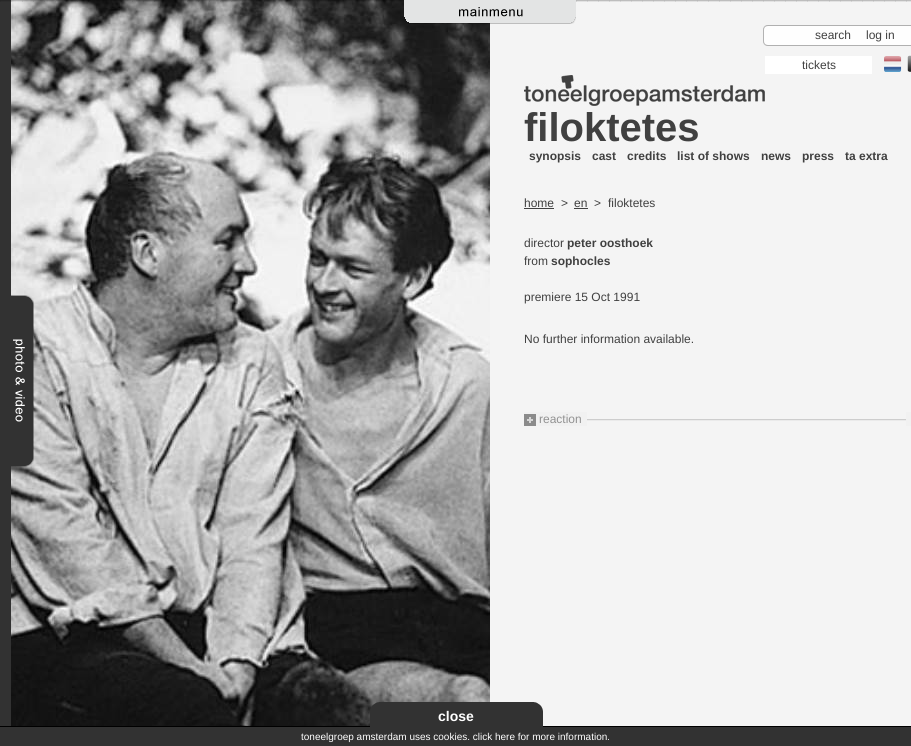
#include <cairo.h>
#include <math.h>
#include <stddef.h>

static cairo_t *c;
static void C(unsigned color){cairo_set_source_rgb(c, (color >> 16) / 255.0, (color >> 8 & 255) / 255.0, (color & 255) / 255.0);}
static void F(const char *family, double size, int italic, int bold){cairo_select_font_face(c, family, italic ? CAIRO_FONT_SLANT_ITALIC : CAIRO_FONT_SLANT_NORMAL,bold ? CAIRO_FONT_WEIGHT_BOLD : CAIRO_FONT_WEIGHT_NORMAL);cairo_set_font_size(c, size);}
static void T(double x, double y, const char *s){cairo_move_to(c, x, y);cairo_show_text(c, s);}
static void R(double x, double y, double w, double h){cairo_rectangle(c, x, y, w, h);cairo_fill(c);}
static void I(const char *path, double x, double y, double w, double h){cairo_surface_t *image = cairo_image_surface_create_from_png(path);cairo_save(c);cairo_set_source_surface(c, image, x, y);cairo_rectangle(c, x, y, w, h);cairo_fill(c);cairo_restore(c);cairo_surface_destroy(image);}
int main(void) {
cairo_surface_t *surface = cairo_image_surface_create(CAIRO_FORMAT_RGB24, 911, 746);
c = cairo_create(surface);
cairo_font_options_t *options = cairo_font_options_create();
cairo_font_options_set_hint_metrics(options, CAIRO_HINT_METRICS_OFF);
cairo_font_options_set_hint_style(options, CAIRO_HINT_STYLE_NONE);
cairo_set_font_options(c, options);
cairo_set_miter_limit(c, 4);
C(0xf4f4f4);
cairo_paint(c);
C(0x323232);
R(0,0,11,746);
I("5.png",11,0,479,726);
I("1.png",0,0,404,2);
I("2.png",404,0,172,24);
I("3.png",576,0,335,2);
I("4.png",11,295,23,172);
I("6.png",763,25,148,21);
I("7.png",763,25,148,21);
F("Liberation Sans",12,0,0);
C(0x404040);
T(815,39,"search");
T(866,39,"log in");
C(0xffffff);
R(765,56,107,18);
C(0x404040);
T(802,69,"tickets");
I("8.png",884,56,18,16);
I("9.png",907,55,4,17);
I("10.png",524,75,241,31);
F("Liberation Sans",40,0,1);
T(524,141,"filoktetes");
F("Liberation Sans",12,0,1);
T(529,160,"synopsis");
T(592,160,"cast");
T(627,160,"credits");
T(677,160,"list of shows");
T(761,160,"news");
T(802,160,"press");
T(845,160,"ta extra");
F("Liberation Sans",12,0,0);
T(524,207,"home");
R(524,208,30,1);
T(561,207,">");
T(574,207,"en");
R(574,208,14,1);
T(594,207,">");
T(608,207,"filoktetes");
T(524,247,"director");
F("Liberation Sans",12,0,1);
T(567,247,"peter oosthoek");
F("Liberation Sans",12,0,0);
T(524,265,"from");
F("Liberation Sans",12,0,1);
T(551,265,"sophocles");
F("Liberation Sans",12,0,0);
T(524,301,"premiere 15 Oct 1991");
T(524,343,"No further information available.");
I("11.png",587,419,319,2);
C(0xf1f1f1);
R(524,412,63,14);
I("12.png",524,414,12,12);
C(0x929292);
T(539,423,"reaction");
C(0xf1f1f1);
R(906,412,5,14);
C(0x000000);
R(0,726,911,1);
I("13.png",370,702,173,25);
F("Liberation Sans",14,0,1);
C(0xffffff);
T(438,721,"close");
C(0x323232);
R(11,727,900,19);
F("Liberation Sans",10,0,0);
C(0xffffff);
T(301,740,"toneelgroep amsterdam uses cookies. click here for more information.");
cairo_surface_write_to_png(surface, "o.png");
cairo_font_options_destroy(options);
cairo_destroy(c);
cairo_surface_destroy(surface);
return 0;
}
